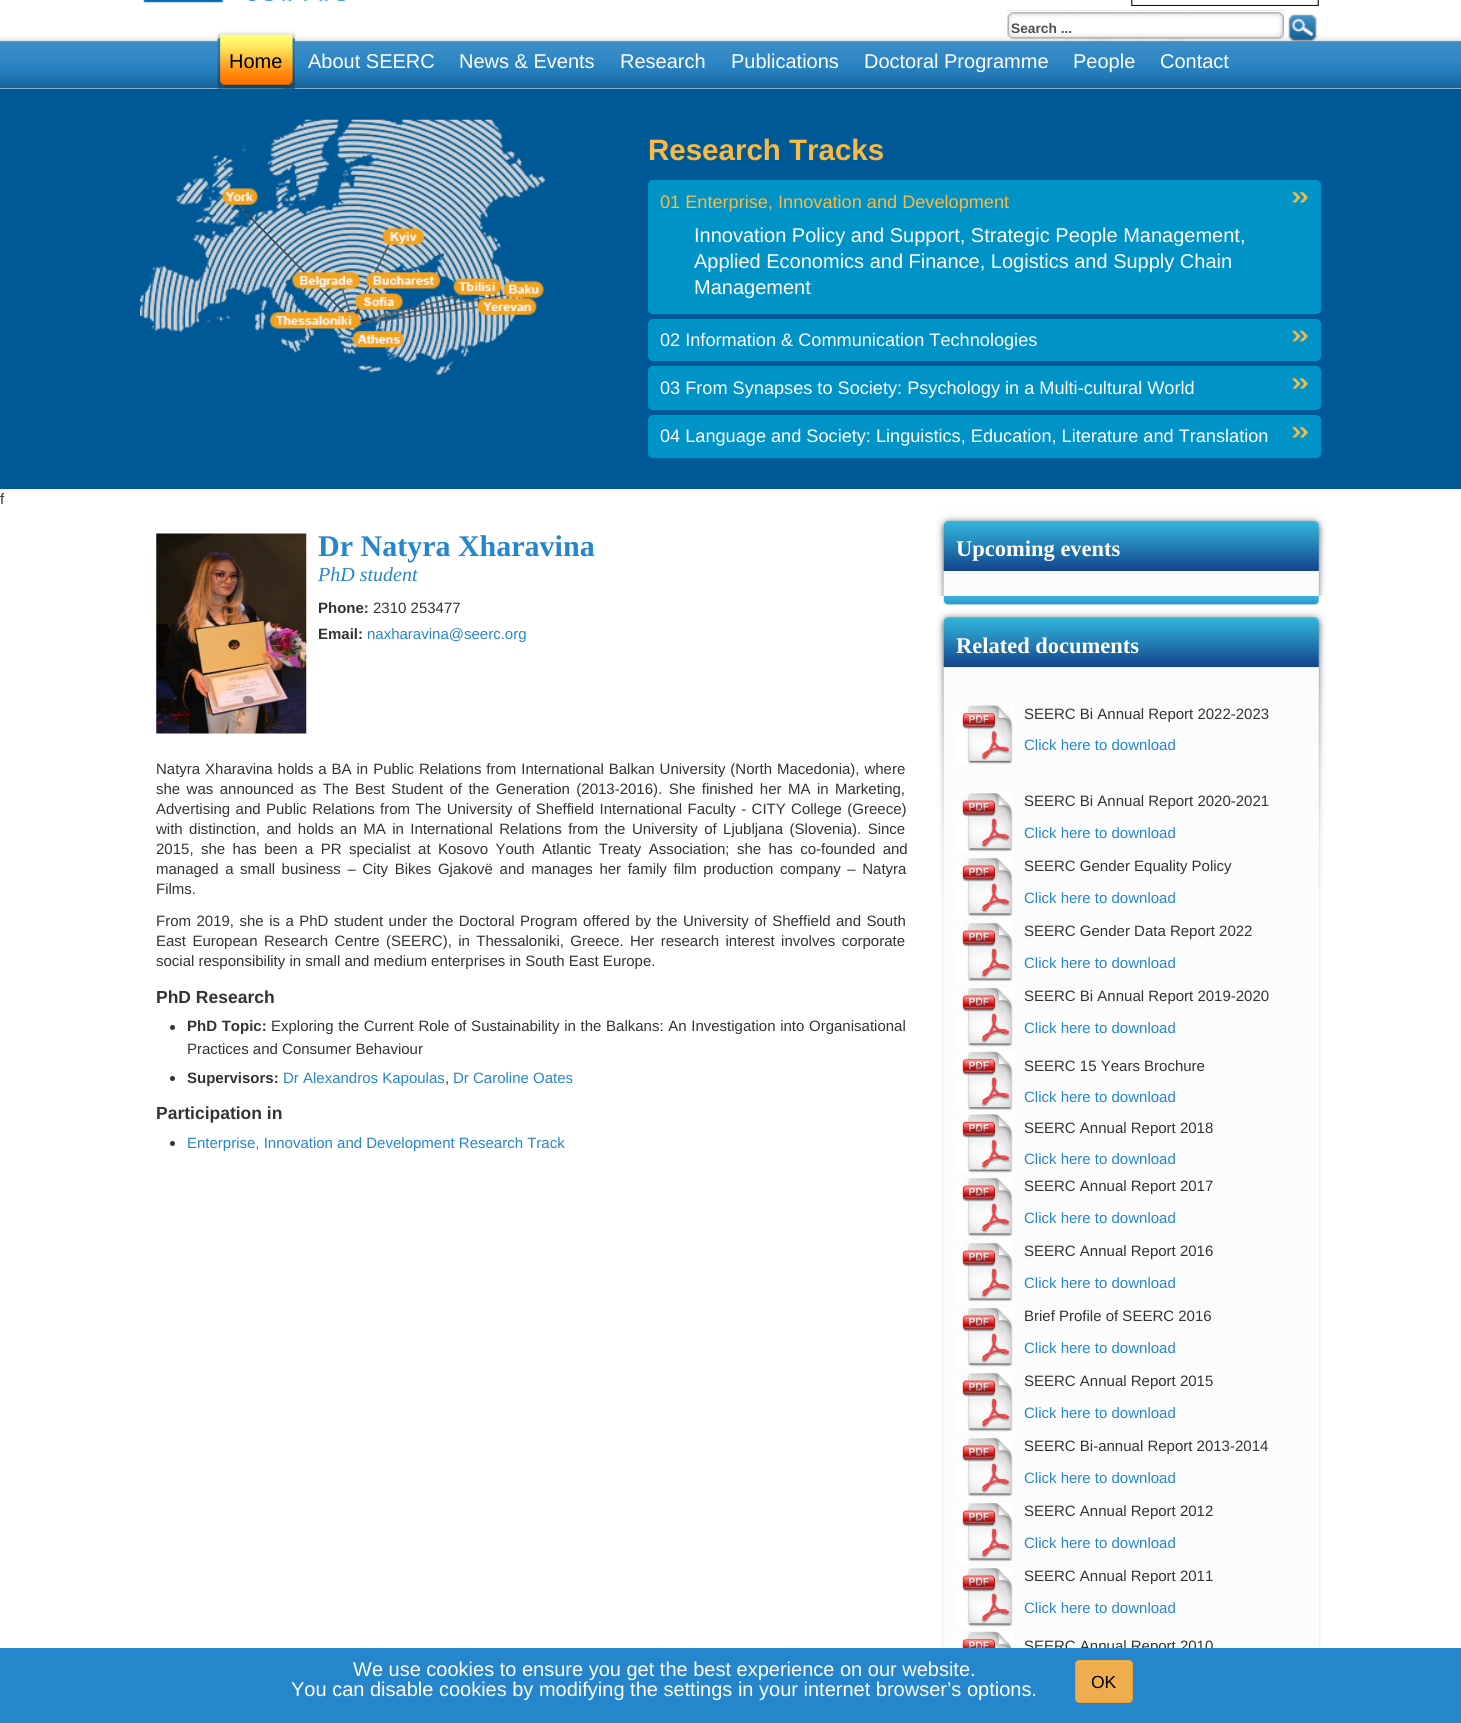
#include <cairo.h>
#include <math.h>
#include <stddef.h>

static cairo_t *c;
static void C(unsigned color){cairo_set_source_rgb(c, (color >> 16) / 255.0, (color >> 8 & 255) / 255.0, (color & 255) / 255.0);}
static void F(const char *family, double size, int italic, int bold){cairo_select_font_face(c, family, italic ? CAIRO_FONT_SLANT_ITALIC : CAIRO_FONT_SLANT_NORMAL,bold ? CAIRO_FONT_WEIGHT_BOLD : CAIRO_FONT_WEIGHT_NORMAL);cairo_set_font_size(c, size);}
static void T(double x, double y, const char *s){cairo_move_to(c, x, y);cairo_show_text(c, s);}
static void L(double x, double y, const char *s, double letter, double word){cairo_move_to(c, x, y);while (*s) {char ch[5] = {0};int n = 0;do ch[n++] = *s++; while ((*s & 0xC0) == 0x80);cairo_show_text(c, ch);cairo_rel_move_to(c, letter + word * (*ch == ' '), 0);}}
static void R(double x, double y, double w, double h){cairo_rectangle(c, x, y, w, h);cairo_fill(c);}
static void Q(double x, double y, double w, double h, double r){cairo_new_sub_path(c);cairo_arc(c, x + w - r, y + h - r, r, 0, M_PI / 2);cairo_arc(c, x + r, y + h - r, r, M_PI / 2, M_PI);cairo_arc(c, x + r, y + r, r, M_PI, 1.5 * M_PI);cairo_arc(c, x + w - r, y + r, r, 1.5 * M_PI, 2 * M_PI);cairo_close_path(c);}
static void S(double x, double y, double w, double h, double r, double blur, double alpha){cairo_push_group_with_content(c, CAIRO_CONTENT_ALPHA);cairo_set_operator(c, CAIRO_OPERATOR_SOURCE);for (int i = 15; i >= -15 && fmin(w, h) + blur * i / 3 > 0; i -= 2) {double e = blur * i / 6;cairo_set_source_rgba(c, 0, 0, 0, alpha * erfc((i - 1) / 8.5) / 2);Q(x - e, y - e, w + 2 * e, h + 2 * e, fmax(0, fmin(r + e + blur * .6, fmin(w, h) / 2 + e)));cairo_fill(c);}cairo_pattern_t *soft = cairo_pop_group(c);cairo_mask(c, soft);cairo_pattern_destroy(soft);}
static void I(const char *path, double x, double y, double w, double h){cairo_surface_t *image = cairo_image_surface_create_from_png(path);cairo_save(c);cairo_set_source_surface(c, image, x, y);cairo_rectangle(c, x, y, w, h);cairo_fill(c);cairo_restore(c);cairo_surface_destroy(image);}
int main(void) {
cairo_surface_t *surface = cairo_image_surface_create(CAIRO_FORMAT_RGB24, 1461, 1723);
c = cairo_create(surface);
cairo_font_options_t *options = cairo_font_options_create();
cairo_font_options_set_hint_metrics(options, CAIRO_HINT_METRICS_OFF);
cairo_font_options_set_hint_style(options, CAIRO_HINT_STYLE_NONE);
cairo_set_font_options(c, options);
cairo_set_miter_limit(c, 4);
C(0xffffff);
cairo_paint(c);
I("1.png",0,35,1461,54);
I("2.png",143,0,203,3);
I("3.png",1131,0,188,6);
I("4.png",1007,12,278,29);
C(0xececec);
cairo_new_path(c);
cairo_move_to(c,1009,11);
cairo_line_to(c,1282,11);
cairo_curve_to(c,1285,11,1286,13,1286,15);
cairo_curve_to(c,1286,12,1285,10,1282,10);
cairo_line_to(c,1009,10);
cairo_curve_to(c,1006,10,1005,12,1005,15);
cairo_curve_to(c,1005,13,1007,11,1009,11);
cairo_close_path(c);
cairo_fill(c);
F("Liberation Sans",13.75,0,1);
C(0x4f4f4f);
T(1011,33,"Search ...");
I("5.png",1288,14,30,28);
I("6.png",217,31,78,58);
I("7.png",282,33,13,56);
F("Liberation Sans",20,0,0);
C(0x000000);
T(229,68,"Home");
C(0xffffff);
T(308,68,"About SEERC");
T(459,68,"News & Events");
T(620,68,"Research");
T(731,68,"Publications");
T(864,68,"Doctoral Programme");
T(1073,68,"People");
T(1160,68,"Contact");
C(0x005997);
R(0,89,1461,400);
I("8.png",140,119,405,256);
F("Liberation Sans",29.5,0,1);
C(0xf9ba45);
T(648,160,"Research Tracks");
C(0x0093c8);
cairo_new_path(c);
cairo_move_to(c,653,180);
cairo_line_to(c,1316,180);
cairo_curve_to(c,1319,180,1321,182,1321,185);
cairo_line_to(c,1321,224);
cairo_line_to(c,648,224);
cairo_line_to(c,648,185);
cairo_curve_to(c,648,182,650,180,653,180);
cairo_close_path(c);
cairo_fill(c);
F("Liberation Sans",18.15,0,0);
C(0xf9ba45);
T(660,208,"01 Enterprise, Innovation and Development");
I("9.png",1292,191,16,13);
C(0x0093c8);
cairo_new_path(c);
cairo_move_to(c,648,224);
cairo_line_to(c,1321,224);
cairo_line_to(c,1321,309);
cairo_curve_to(c,1321,312,1319,314,1316,314);
cairo_line_to(c,653,314);
cairo_curve_to(c,650,314,648,312,648,309);
cairo_close_path(c);
cairo_fill(c);
F("Liberation Sans",20,0,0);
C(0xffffff);
T(694,242,"Innovation Policy and Support, Strategic People Management,");
T(694,268,"Applied Economics and Finance, Logistics and Supply Chain");
T(694,294,"Management");
C(0x0093c8);
Q(648,319,673,42,5);
cairo_fill(c);
F("Liberation Sans",18.15,0,0);
C(0xffffff);
T(660,346,"02 Information & Communication Technologies");
I("10.png",1292,329,16,14);
C(0x0093c8);
Q(648,366,673,44,5);
cairo_fill(c);
C(0xffffff);
T(660,394,"03 From Synapses to Society: Psychology in a Multi-cultural World");
I("11.png",1292,377,16,13);
C(0x0093c8);
Q(648,415,673,43,5);
cairo_fill(c);
C(0xffffff);
T(660,442,"04 Language and Society: Linguistics, Education, Literature and Translation");
I("9.png",1292,426,16,13);
F("Liberation Sans",15,0,0);
C(0x333333);
T(0,504,"f");
I("12.png",156,533,151,201);
F("Liberation Serif",30,0,1);
C(0x2686cb);
T(318,556,"Dr Natyra Xharavina");
F("Liberation Serif",20,1,0);
T(318,581,"PhD student");
F("Liberation Sans",15,0,1);
C(0x333333);
T(318,613,"Phone:");
F("Liberation Sans",15,0,0);
T(373,613,"2310 253477");
F("Liberation Sans",15,0,1);
T(318,639,"Email:");
F("Liberation Sans",15,0,0);
C(0x2686cb);
T(367,639,"naxharavina@seerc.org");
C(0x333333);
L(156,774,"Natyra Xharavina holds a BA in Public Relations from International Balkan University (North Macedonia), where",0,.75);
L(156,794,"she was announced as The Best Student of the Generation (2013-2016). She finished her MA in Marketing,",0,2.25);
L(156,814,"Advertising and Public Relations from The University of Sheffield International Faculty - CITY College (Greece)",0,1.2);
L(156,834,"with distinction, and holds an MA in International Relations from the University of Ljubljana (Slovenia). Since",0,2.25);
L(156,854,"2015, she has been a PR specialist at Kosovo Youth Atlantic Treaty Association; she has co-founded and",0,3.25);
L(156,874,"managed a small business – City Bikes Gjakovë and manages her family film production company – Natyra",0,2.4);
T(156,894,"Films.");
L(156,926,"From 2019, she is a PhD student under the Doctoral Program offered by the University of Sheffield and South",0,1.3);
L(156,946,"East European Research Centre (SEERC), in Thessaloniki, Greece. Her research interest involves corporate",0,2.25);
T(156,966,"social responsibility in small and medium enterprises in South East Europe.");
F("Liberation Sans",17.5,0,1);
T(156,1003,"PhD Research");
cairo_new_path(c);
cairo_arc(c,172.5,1027.5,2.5,0,2 * M_PI);
cairo_fill(c);
F("Liberation Sans",15,0,1);
L(187,1031,"PhD Topic:",0,.5);
F("Liberation Sans",15,0,0);
L(271,1031,"Exploring the Current Role of Sustainability in the Balkans: An Investigation into Organisational",0,.5);
T(187,1054,"Practices and Consumer Behaviour");
cairo_new_path(c);
cairo_arc(c,172.5,1078.5,2.5,0,2 * M_PI);
cairo_fill(c);
F("Liberation Sans",15,0,1);
T(187,1083,"Supervisors:");
F("Liberation Sans",15,0,0);
C(0x2686cb);
T(283,1083,"Dr Alexandros Kapoulas");
C(0x333333);
T(445,1083,",");
C(0x2686cb);
T(453,1083,"Dr Caroline Oates");
F("Liberation Sans",17.5,0,1);
C(0x333333);
T(156,1119,"Participation in");
cairo_new_path(c);
cairo_arc(c,172.5,1143.5,2.5,0,2 * M_PI);
cairo_fill(c);
F("Liberation Sans",15,0,0);
C(0x2686cb);
T(187,1148,"Enterprise, Innovation and Development Research Track");
I("13.png",941,508,380,97);
I("14.png",936,509,390,62);
F("Liberation Serif",22.5,0,1);
C(0xffffff);
T(956,556,"Upcoming events");
I("15.png",937,571,389,25);
I("16.png",941,596,380,9);
I("17.png",941,604,380,1044);
I("18.png",936,604,390,64);
T(956,653,"Related documents");
I("19.png",937,667,389,225);
I("20.png",957,705,57,59);
F("Liberation Sans",15,0,0);
C(0x333333);
T(1024,719,"SEERC Bi Annual Report 2022-2023");
C(0x2686cb);
T(1024,750,"Click here to download");
I("21.png",957,792,56,60);
C(0x333333);
T(1024,806,"SEERC Bi Annual Report 2020-2021");
C(0x2686cb);
T(1024,838,"Click here to download");
I("21.png",957,857,56,60);
C(0x333333);
T(1024,871,"SEERC Gender Equality Policy");
C(0x2686cb);
T(1024,903,"Click here to download");
I("22.png",957,922,56,60);
C(0x333333);
T(1024,936,"SEERC Gender Data Report 2022");
C(0x2686cb);
T(1024,968,"Click here to download");
I("23.png",957,987,56,60);
C(0x333333);
T(1024,1001,"SEERC Bi Annual Report 2019-2020");
C(0x2686cb);
T(1024,1033,"Click here to download");
I("24.png",957,1051,57,59);
C(0x333333);
T(1024,1071,"SEERC 15 Years Brochure");
C(0x2686cb);
T(1024,1102,"Click here to download");
I("25.png",957,1113,57,60);
C(0x333333);
T(1024,1133,"SEERC Annual Report 2018");
C(0x2686cb);
T(1024,1164,"Click here to download");
I("26.png",957,1177,56,60);
C(0x333333);
T(1024,1191,"SEERC Annual Report 2017");
C(0x2686cb);
T(1024,1223,"Click here to download");
I("27.png",957,1242,56,60);
C(0x333333);
T(1024,1256,"SEERC Annual Report 2016");
C(0x2686cb);
T(1024,1288,"Click here to download");
I("21.png",957,1307,56,60);
C(0x333333);
T(1024,1321,"Brief Profile of SEERC 2016");
C(0x2686cb);
T(1024,1353,"Click here to download");
I("28.png",957,1372,56,60);
C(0x333333);
T(1024,1386,"SEERC Annual Report 2015");
C(0x2686cb);
T(1024,1418,"Click here to download");
I("27.png",957,1437,56,60);
C(0x333333);
T(1024,1451,"SEERC Bi-annual Report 2013-2014");
C(0x2686cb);
T(1024,1483,"Click here to download");
I("21.png",957,1502,56,60);
C(0x333333);
T(1024,1516,"SEERC Annual Report 2012");
C(0x2686cb);
T(1024,1548,"Click here to download");
I("21.png",957,1567,56,60);
C(0x333333);
T(1024,1581,"SEERC Annual Report 2011");
C(0x2686cb);
T(1024,1613,"Click here to download");
I("29.png",957,1631,57,17);
C(0x333333);
T(1024,1651,"SEERC Annual Report 2010");
C(0x2686cb);
R(0,1648,1461,75);
F("Liberation Sans",20,0,0);
C(0xffffff);
T(353,1676,"We use cookies to ensure you get the best experience on our website.");
T(291,1696,"You can disable cookies by modifying the settings in your internet browser’s options.");
C(0x000000);
S(1075,1661,58,43,5,1,.05);
C(0xf0ad4e);
Q(1075,1660,58,43,5);
cairo_fill(c);
C(0xf3bd71);
cairo_new_path(c);
cairo_move_to(c,1080,1662);
cairo_line_to(c,1128,1662);
cairo_curve_to(c,1130,1662,1131,1664,1131,1666);
cairo_curve_to(c,1131,1659,1124,1661,1119,1661);
cairo_line_to(c,1088,1661);
cairo_curve_to(c,1083,1661,1076,1659,1076,1666);
cairo_curve_to(c,1076,1664,1078,1662,1080,1662);
cairo_close_path(c);
cairo_fill(c);
Q(1075.5,1660.5,57,42,4.5);
C(0xeea236);
cairo_set_line_width(c,1);
cairo_stroke(c);
F("Liberation Sans",17.5,0,0);
C(0x000000);
T(1091,1688,"OK");
cairo_surface_write_to_png(surface, "o.png");
cairo_font_options_destroy(options);
cairo_destroy(c);
cairo_surface_destroy(surface);
return 0;
}
